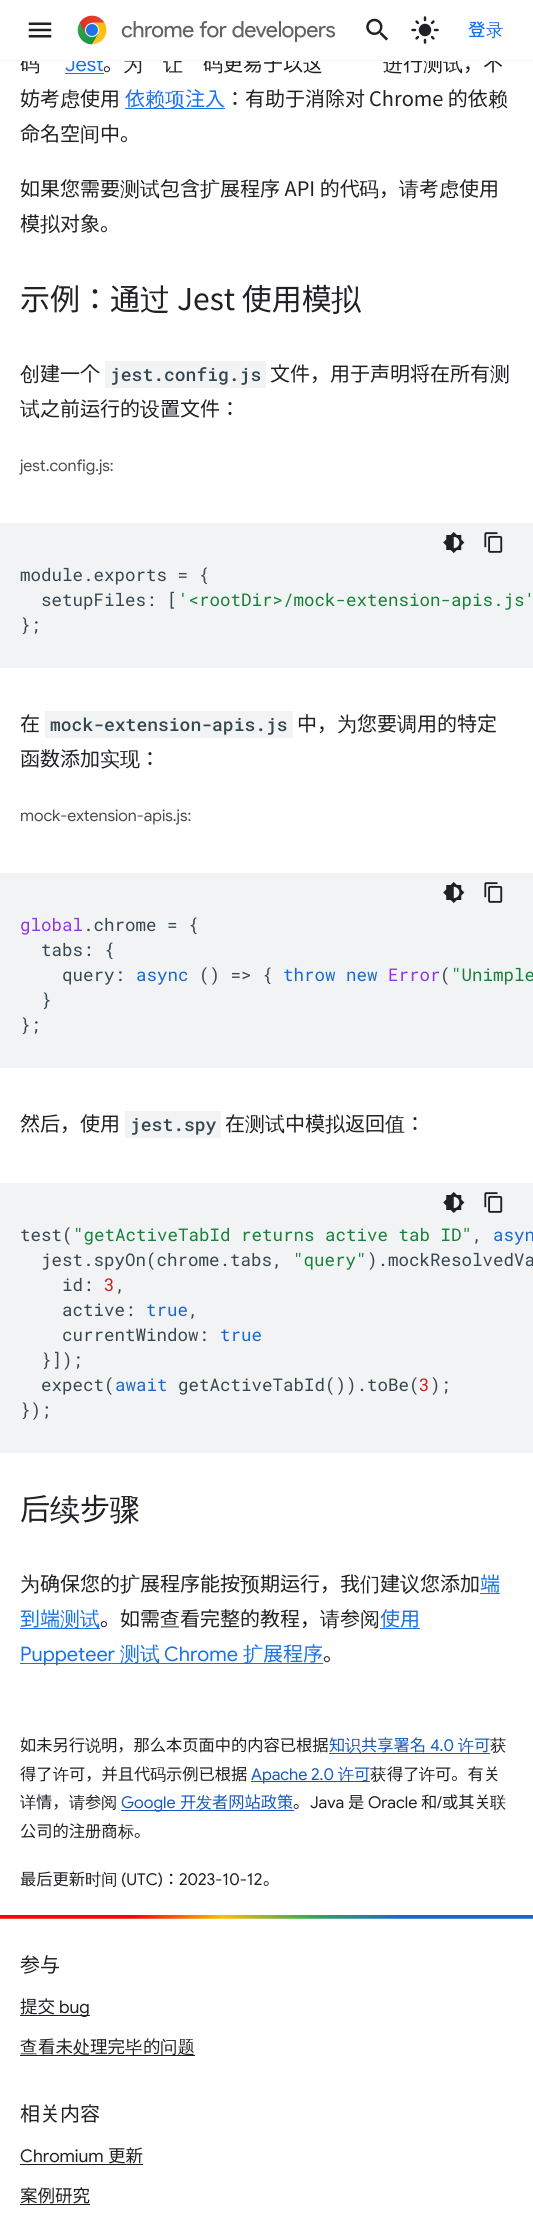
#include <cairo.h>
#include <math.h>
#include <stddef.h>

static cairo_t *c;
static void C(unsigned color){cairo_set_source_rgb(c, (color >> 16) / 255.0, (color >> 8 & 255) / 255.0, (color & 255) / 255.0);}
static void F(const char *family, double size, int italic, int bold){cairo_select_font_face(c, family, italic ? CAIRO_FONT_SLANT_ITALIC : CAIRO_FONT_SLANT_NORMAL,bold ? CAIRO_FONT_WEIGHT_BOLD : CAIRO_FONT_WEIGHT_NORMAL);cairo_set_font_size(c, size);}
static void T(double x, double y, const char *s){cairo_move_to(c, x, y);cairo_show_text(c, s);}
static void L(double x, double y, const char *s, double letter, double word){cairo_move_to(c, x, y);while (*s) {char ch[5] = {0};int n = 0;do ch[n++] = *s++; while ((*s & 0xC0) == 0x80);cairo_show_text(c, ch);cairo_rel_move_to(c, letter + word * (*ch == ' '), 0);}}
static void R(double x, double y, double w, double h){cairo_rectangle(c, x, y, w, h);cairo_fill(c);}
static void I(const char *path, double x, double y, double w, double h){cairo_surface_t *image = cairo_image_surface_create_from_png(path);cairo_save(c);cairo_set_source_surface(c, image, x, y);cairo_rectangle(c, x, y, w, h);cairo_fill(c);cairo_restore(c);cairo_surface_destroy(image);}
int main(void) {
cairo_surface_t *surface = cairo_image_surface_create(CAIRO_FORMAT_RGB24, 533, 2215);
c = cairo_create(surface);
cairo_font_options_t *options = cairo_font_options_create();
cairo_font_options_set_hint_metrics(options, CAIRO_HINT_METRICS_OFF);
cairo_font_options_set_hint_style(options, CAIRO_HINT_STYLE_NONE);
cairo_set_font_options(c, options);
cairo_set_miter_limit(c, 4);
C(0xffffff);
cairo_paint(c);
F("WenQuanYi Zen Hei Medium",20,0,0);
C(0x202124);
T(20,71,"码");
F("Google Sans",20,0,0);
C(0x1a73e8);
T(65,71,"Jest");
F("WenQuanYi Zen Hei Medium",20,0,0);
C(0x202124);
T(123,71,"为");
T(163,71,"让");
T(203,71,"码");
F("Noto Sans JP",20,0,0);
T(223,71,"更易于以");
F("WenQuanYi Zen Hei Medium",20,0,0);
T(303,71,"这");
T(383,71,"进");
F("Noto Sans JP",20,0,0);
T(403,71,"行");
F("WenQuanYi Zen Hei Medium",20,0,0);
T(423,71,"测试");
F("Noto Sans JP",20,0,0);
T(463,71,"，不");
C(0xffffff);
R(20,54,482,6);
C(0xf5f6f7);
R(0,60,533,1);
I("1.png",28,22,24,16);
I("2.png",77,15,259,30);
I("3.png",366,18,22,23);
I("4.png",411,16,28,28);
F("Noto Sans JP Medium",17.5,0,0);
C(0x1a73e8);
L(468,36,"登",1,0);
F("WenQuanYi Zen Hei Medium",17.5,0,0);
L(486,36,"录",1,0);
R(65,73,39,1);
F("Noto Sans JP",20,0,0);
C(0x202124);
T(103,71,"。");
T(20,106,"妨考");
F("WenQuanYi Zen Hei Medium",20,0,0);
T(60,106,"虑");
F("Noto Sans JP",20,0,0);
T(80,106,"使用");
C(0x1a73e8);
T(125,106,"依");
R(125,108,100,1);
F("WenQuanYi Zen Hei Medium",20,0,0);
T(145,106,"赖项");
F("Noto Sans JP",20,0,0);
T(185,106,"注入");
C(0x202124);
T(225,106,"：有助于消除");
F("Noto Sans KR",20,0,0);
T(345,106,"对");
F("Noto Sans JP",20,0,0);
T(369,106,"Chrome 的依");
F("WenQuanYi Zen Hei Medium",20,0,0);
T(488,106,"赖");
F("Noto Sans JP",20,0,0);
T(20,141,"命名空");
F("WenQuanYi Zen Hei Medium",20,0,0);
T(80,141,"间");
F("Noto Sans JP",20,0,0);
T(100,141,"中。");
T(20,196,"如果您需要");
F("WenQuanYi Zen Hei Medium",20,0,0);
T(120,196,"测试");
F("Noto Sans JP",20,0,0);
T(160,196,"包含");
F("WenQuanYi Zen Hei Medium",20,0,0);
T(200,196,"扩");
F("Noto Sans JP",20,0,0);
T(220,196,"展程序 API 的代");
F("WenQuanYi Zen Hei Medium",20,0,0);
T(359,196,"码");
F("Noto Sans JP",20,0,0);
T(379,196,"，");
F("WenQuanYi Zen Hei Medium",20,0,0);
T(399,196,"请");
F("Noto Sans JP",20,0,0);
T(419,196,"考");
F("WenQuanYi Zen Hei Medium",20,0,0);
T(439,196,"虑");
F("Noto Sans JP",20,0,0);
T(459,196,"使用");
T(20,231,"模");
F("WenQuanYi Zen Hei Medium",20,0,0);
T(40,231,"拟");
F("Noto Sans KR",20,0,0);
T(60,231,"对");
F("Noto Sans JP",20,0,0);
T(80,231,"象。");
F("Noto Sans JP",30,0,0);
T(20,310,"示例：通");
F("WenQuanYi Zen Hei Medium",30,0,0);
T(140,310,"过");
F("Noto Sans JP",30,0,0);
T(177,310,"Jest 使用模");
F("WenQuanYi Zen Hei Medium",30,0,0);
T(331,310,"拟");
F("WenQuanYi Zen Hei Medium",20,0,0);
T(20,381,"创");
F("Noto Sans JP",20,0,0);
T(40,381,"建一个");
C(0xf1f3f4);
R(105,361,161,27);
F("Roboto Mono Medium",18,0,0);
C(0x37474f);
T(110,381,"jest.config.js");
F("Noto Sans JP",20,0,0);
C(0x202124);
T(270,381,"文件，用于声明将在所有");
F("WenQuanYi Zen Hei Medium",20,0,0);
T(490,381,"测");
T(20,416,"试");
F("Noto Sans JP",20,0,0);
T(40,416,"之前运行的");
F("WenQuanYi Zen Hei Medium",20,0,0);
T(140,416,"设");
F("Noto Sans JP",20,0,0);
T(160,416,"置文件：");
F("Google Sans",16,0,0);
C(0x4d4d50);
T(20,471,"jest.config.js:");
C(0xf1f3f4);
R(0,523,533,145);
I("5.png",443,532,22,21);
I("6.png",484,532,19,21);
F("Roboto Mono",17.5,0,0);
C(0x37474f);
T(20,581,"module.exports = {");
T(41,606,"setupFiles: [");
C(0x188038);
T(178,606,"'<rootDir>/mock-extension-apis.js'");
C(0x37474f);
T(20,631,"};");
F("Noto Sans JP",20,0,0);
C(0x202124);
T(20,731,"在");
C(0xf1f3f4);
R(45,711,248,27);
F("Roboto Mono Medium",18,0,0);
C(0x37474f);
T(50,731,"mock-extension-apis.js");
F("Noto Sans JP",20,0,0);
C(0x202124);
T(297,731,"中，");
F("WenQuanYi Zen Hei Medium",20,0,0);
T(337,731,"为");
F("Noto Sans JP",20,0,0);
T(357,731,"您要");
F("WenQuanYi Zen Hei Medium",20,0,0);
T(397,731,"调");
F("Noto Sans JP",20,0,0);
T(417,731,"用的特定");
T(20,766,"函数添加");
F("WenQuanYi Zen Hei Medium",20,0,0);
T(100,766,"实现");
F("Noto Sans JP",20,0,0);
T(140,766,"：");
F("Google Sans",16,0,0);
C(0x4d4d50);
T(20,821,"mock-extension-apis.js:");
C(0xf1f3f4);
R(0,873,533,195);
I("5.png",443,882,22,21);
I("6.png",484,882,19,21);
F("Roboto Mono",17.5,0,0);
C(0x9334e6);
T(20,931,"global");
C(0x37474f);
T(83,931,".chrome = {");
T(41,956,"tabs: {");
T(62,981,"query:");
C(0x1967d2);
T(136,981,"async");
C(0x37474f);
T(199,981,"() => {");
C(0x1967d2);
T(283,981,"throw new");
C(0x9334e6);
T(388,981,"Error");
C(0x37474f);
T(440,981,"(");
C(0x188038);
T(451,981,"\"Unimple");
C(0x37474f);
T(41,1006,"}");
T(20,1031,"};");
F("Noto Sans JP",20,0,0);
C(0x202124);
T(20,1131,"然后，使用");
C(0xf1f3f4);
R(125,1111,96,27);
F("Roboto Mono Medium",18,0,0);
C(0x37474f);
T(130,1131,"jest.spy");
F("Noto Sans JP",20,0,0);
C(0x202124);
T(225,1131,"在");
F("WenQuanYi Zen Hei Medium",20,0,0);
T(245,1131,"测试");
F("Noto Sans JP",20,0,0);
T(285,1131,"中模");
F("WenQuanYi Zen Hei Medium",20,0,0);
T(325,1131,"拟");
F("Noto Sans JP",20,0,0);
T(345,1131,"返回");
F("WenQuanYi Zen Hei Medium",20,0,0);
T(385,1131,"值");
F("Noto Sans JP",20,0,0);
T(405,1131,"：");
C(0xf1f3f4);
R(0,1183,533,270);
I("5.png",443,1192,22,21);
I("6.png",484,1192,19,21);
F("Roboto Mono",17.5,0,0);
C(0x37474f);
T(20,1241,"test(");
C(0x188038);
T(73,1241,"\"getActiveTabId returns active tab ID\"");
C(0x37474f);
T(472,1241,",");
C(0x1967d2);
T(493,1241,"asyn");
C(0x37474f);
T(41,1266,"jest.spyOn(chrome.tabs,");
C(0x188038);
T(293,1266,"\"query\"");
C(0x37474f);
T(367,1266,").mockResolvedVa");
T(62,1291,"id:");
C(0xc5221f);
T(104,1291,"3");
C(0x37474f);
T(115,1291,",");
T(62,1316,"active:");
C(0x1967d2);
T(146,1316,"true");
C(0x37474f);
T(188,1316,",");
T(62,1341,"currentWindow:");
C(0x1967d2);
T(220,1341,"true");
C(0x37474f);
T(41,1366,"}]);");
T(41,1391,"expect(");
C(0x1967d2);
T(115,1391,"await");
C(0x37474f);
T(178,1391,"getActiveTabId()).toBe( );");
C(0xc5221f);
T(419,1391,"3");
C(0x37474f);
T(20,1416,"});");
F("Noto Sans JP",30,0,0);
C(0x202124);
T(20,1520,"后");
F("WenQuanYi Zen Hei Medium",30,0,0);
T(50,1520,"续");
F("Noto Sans JP",30,0,0);
T(80,1520,"步");
F("WenQuanYi Zen Hei Medium",30,0,0);
T(110,1520,"骤");
F("WenQuanYi Zen Hei Medium",20,0,0);
T(20,1591,"为");
F("Noto Sans JP",20,0,0);
T(40,1591,"确保您的");
F("WenQuanYi Zen Hei Medium",20,0,0);
T(120,1591,"扩");
F("Noto Sans JP",20,0,0);
T(140,1591,"展程序能按");
F("WenQuanYi Zen Hei Medium",20,0,0);
T(240,1591,"预");
F("Noto Sans JP",20,0,0);
T(260,1591,"期运行，我");
F("WenQuanYi Zen Hei Medium",20,0,0);
T(360,1591,"们");
F("Noto Sans JP",20,0,0);
T(380,1591,"建");
F("WenQuanYi Zen Hei Medium",20,0,0);
T(400,1591,"议");
F("Noto Sans JP",20,0,0);
T(420,1591,"您添加");
C(0x1a73e8);
T(480,1591,"端");
R(480,1593,20,1);
T(20,1626,"到端");
R(20,1628,80,1);
F("WenQuanYi Zen Hei Medium",20,0,0);
T(60,1626,"测试");
F("Noto Sans JP",20,0,0);
C(0x202124);
T(100,1626,"。如需");
F("WenQuanYi Zen Hei Medium",20,0,0);
T(160,1626,"查");
F("Noto Sans JP",20,0,0);
T(180,1626,"看完整的教程，");
F("WenQuanYi Zen Hei Medium",20,0,0);
T(320,1626,"请");
F("Noto Sans JP",20,0,0);
T(340,1626,"参");
F("WenQuanYi Zen Hei Medium",20,0,0);
T(360,1626,"阅");
F("Noto Sans JP",20,0,0);
C(0x1a73e8);
T(380,1626,"使用");
R(380,1628,40,1);
R(20,1663,303,1);
F("Google Sans",20,0,0);
T(20,1661,"Puppeteer");
F("WenQuanYi Zen Hei Medium",20,0,0);
T(120,1661,"测试");
F("Google Sans",20,0,0);
T(164,1661,"Chrome");
F("WenQuanYi Zen Hei Medium",20,0,0);
T(243,1661,"扩");
F("Noto Sans JP",20,0,0);
T(263,1661,"展程序");
C(0x202124);
T(323,1661,"。");
F("Noto Sans JP",16.25,0,0);
T(20,1751,"如未另行");
F("WenQuanYi Zen Hei Medium",16.25,0,0);
T(85,1751,"说");
F("Noto Sans JP",16.25,0,0);
T(101,1751,"明，那么本页面中的内容已根据");
C(0x185abc);
T(329,1751,"知");
R(329,1753,161,1);
F("WenQuanYi Zen Hei Medium",16.25,0,0);
T(345,1751,"识");
F("Noto Sans JP",16.25,0,0);
T(361,1751,"共享署名");
F("Google Sans",16.25,0,0);
T(430,1751,"4.0");
F("WenQuanYi Zen Hei Medium",16.25,0,0);
T(458,1751,"许");
F("Noto Sans JP",16.25,0,0);
T(474,1751,"可");
F("WenQuanYi Zen Hei Medium",16.25,0,0);
C(0x202124);
T(490,1751,"获");
F("Noto Sans JP",16.25,0,0);
T(20,1780,"得了");
F("WenQuanYi Zen Hei Medium",16.25,0,0);
T(53,1780,"许");
F("Noto Sans JP",16.25,0,0);
T(69,1780,"可，并且代");
F("WenQuanYi Zen Hei Medium",16.25,0,0);
T(150,1780,"码");
F("Noto Sans JP",16.25,0,0);
T(166,1780,"示例已根据");
C(0x185abc);
R(251,1781,119,1);
F("Google Sans",16.25,0,0);
T(251,1780,"Apache 2.0");
F("WenQuanYi Zen Hei Medium",16.25,0,0);
T(338,1780,"许");
F("Noto Sans JP",16.25,0,0);
T(354,1780,"可");
F("WenQuanYi Zen Hei Medium",16.25,0,0);
C(0x202124);
T(370,1780,"获");
F("Noto Sans JP",16.25,0,0);
T(387,1780,"得了");
F("WenQuanYi Zen Hei Medium",16.25,0,0);
T(419,1780,"许");
F("Noto Sans JP",16.25,0,0);
T(435,1780,"可。有关");
F("WenQuanYi Zen Hei Medium",16.25,0,0);
T(20,1808,"详");
F("Noto Sans JP",16.25,0,0);
T(36,1808,"情，");
F("WenQuanYi Zen Hei Medium",16.25,0,0);
T(69,1808,"请");
F("Noto Sans JP",16.25,0,0);
T(85,1808,"参");
F("WenQuanYi Zen Hei Medium",16.25,0,0);
T(101,1808,"阅");
C(0x185abc);
R(121,1810,173,1);
F("Google Sans",16.25,0,0);
T(121,1808,"Google");
F("Noto Sans JP",16.25,0,0);
T(180,1808,"开");
F("WenQuanYi Zen Hei Medium",16.25,0,0);
T(196,1808,"发");
F("Noto Sans JP",16.25,0,0);
T(212,1808,"者网站政策");
C(0x202124);
T(293,1808,"。");
F("Google Sans",16.25,0,0);
T(310,1808,"Java");
F("Noto Sans JP",16.25,0,0);
T(348,1808,"是");
F("Google Sans",16.25,0,0);
T(368,1808,"Oracle");
F("Noto Sans JP",16.25,0,0);
T(421,1808,"和");
F("Google Sans",16.25,0,0);
T(437,1808,"/");
F("Noto Sans JP",16.25,0,0);
T(442,1808,"或其关");
F("WenQuanYi Zen Hei Medium",16.25,0,0);
T(490,1808,"联");
F("Noto Sans JP",16.25,0,0);
T(20,1837,"公司的注册商");
F("WenQuanYi Zen Hei Medium",16.25,0,0);
T(118,1837,"标");
F("Noto Sans JP",16.25,0,0);
T(134,1837,"。");
T(20,1885,"最后更新");
F("WenQuanYi Zen Hei Medium",16.25,0,0);
T(85,1885,"时间");
F("Google Sans",16.25,0,0);
T(121,1885,"(UTC)");
F("Noto Sans JP",16.25,0,0);
T(163,1885,"：");
F("Google Sans",16.25,0,0);
T(179,1885,"2023-10-12");
F("Noto Sans JP",16.25,0,0);
T(263,1885,"。");
I("7.png",0,1915,533,4);
F("Noto Sans JP",20,0,0);
T(20,1972,"参与");
F("Noto Sans JP",17.5,0,0);
T(20,2013,"提交");
R(20,2015,70,1);
F("Google Sans",17.5,0,0);
T(59,2013,"bug");
F("WenQuanYi Zen Hei Medium",17.5,0,0);
T(20,2053,"查");
F("Noto Sans JP",17.5,0,0);
T(38,2053,"看未");
F("WenQuanYi Zen Hei Medium",17.5,0,0);
T(73,2053,"处");
F("Noto Sans JP",17.5,0,0);
T(90,2053,"理完");
R(20,2055,175,1);
F("WenQuanYi Zen Hei Medium",17.5,0,0);
T(125,2053,"毕");
F("Noto Sans JP",17.5,0,0);
T(143,2053,"的");
F("WenQuanYi Zen Hei Medium",17.5,0,0);
T(160,2053,"问题");
F("Noto Sans JP",20,0,0);
T(20,2121,"相关内容");
F("Google Sans",17.5,0,0);
T(20,2162,"Chromium");
R(20,2164,123,1);
F("Noto Sans JP",17.5,0,0);
T(108,2162,"更新");
T(20,2202,"案例研究");
R(20,2204,70,1);
cairo_surface_write_to_png(surface, "o.png");
cairo_font_options_destroy(options);
cairo_destroy(c);
cairo_surface_destroy(surface);
return 0;
}
